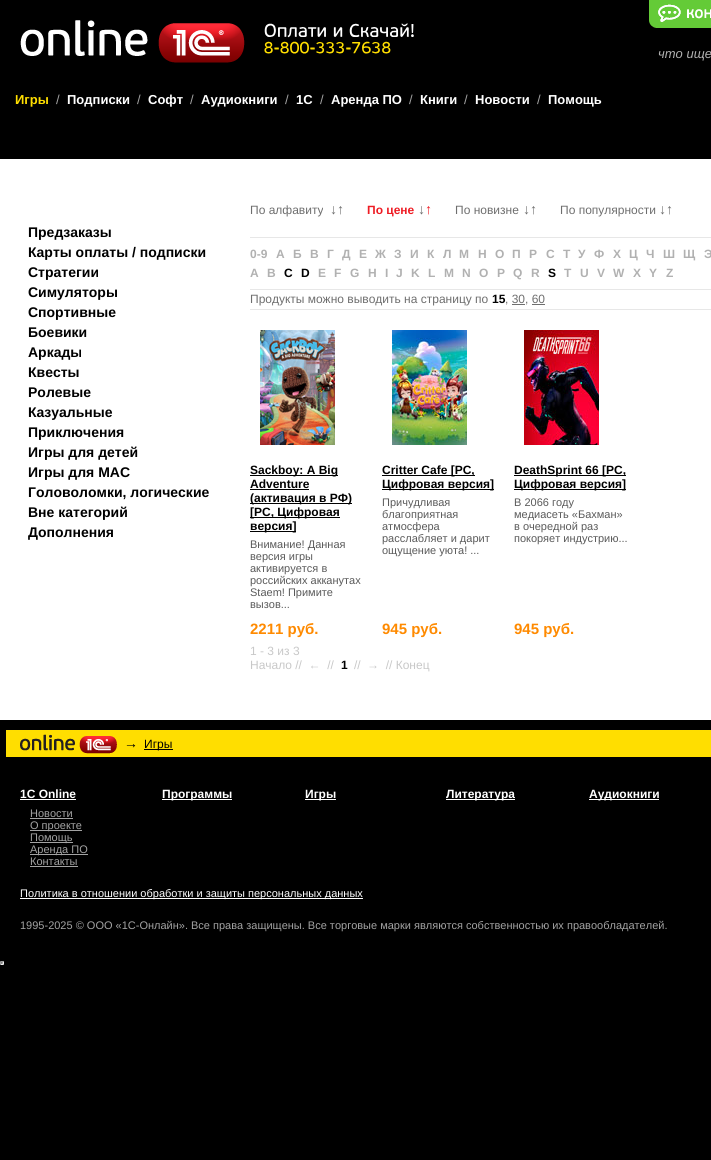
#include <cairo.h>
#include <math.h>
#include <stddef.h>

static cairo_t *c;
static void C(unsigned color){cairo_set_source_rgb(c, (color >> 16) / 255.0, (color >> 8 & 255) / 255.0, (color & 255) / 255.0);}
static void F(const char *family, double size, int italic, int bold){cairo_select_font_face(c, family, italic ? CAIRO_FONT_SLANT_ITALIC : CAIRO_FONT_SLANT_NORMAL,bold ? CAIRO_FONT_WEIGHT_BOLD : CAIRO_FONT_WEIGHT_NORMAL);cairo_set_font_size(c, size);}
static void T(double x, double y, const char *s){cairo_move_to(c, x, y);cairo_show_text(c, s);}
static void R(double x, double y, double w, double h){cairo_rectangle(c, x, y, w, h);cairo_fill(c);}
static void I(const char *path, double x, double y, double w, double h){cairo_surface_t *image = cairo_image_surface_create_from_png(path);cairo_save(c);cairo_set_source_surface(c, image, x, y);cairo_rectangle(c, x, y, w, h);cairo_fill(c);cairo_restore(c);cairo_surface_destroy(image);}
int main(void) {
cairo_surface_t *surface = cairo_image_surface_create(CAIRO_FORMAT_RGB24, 711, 1160);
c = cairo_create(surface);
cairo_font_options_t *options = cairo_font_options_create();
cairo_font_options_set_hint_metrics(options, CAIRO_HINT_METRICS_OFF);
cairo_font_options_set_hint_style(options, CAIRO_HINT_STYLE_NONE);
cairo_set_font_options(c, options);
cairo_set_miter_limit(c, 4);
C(0x000000);
cairo_paint(c);
I("1.png",649,0,62,28);
I("2.png",20,20,225,43);
I("3.png",264,23,62,15);
I("4.png",333,27,10,10);
I("5.png",349,23,65,14);
I("6.png",264,41,127,13);
F("Liberation Sans",13,1,0);
C(0xb1b1b1);
T(658,58,"что ище");
F("Liberation Sans",13,0,1);
C(0xffde00);
T(15,104,"Игры");
F("Liberation Sans",13,0,0);
C(0xa3a3a3);
T(56,104,"/");
F("Liberation Sans",13,0,1);
C(0xffffff);
T(67,104,"Подписки");
F("Liberation Sans",13,0,0);
C(0xa3a3a3);
T(137,104,"/");
F("Liberation Sans",13,0,1);
C(0xffffff);
T(148,104,"Софт");
F("Liberation Sans",13,0,0);
C(0xa3a3a3);
T(190,104,"/");
F("Liberation Sans",13,0,1);
C(0xffffff);
T(201,104,"Аудиокниги");
F("Liberation Sans",13,0,0);
C(0xa3a3a3);
T(285,104,"/");
F("Liberation Sans",13,0,1);
C(0xffffff);
T(296,104,"1C");
F("Liberation Sans",13,0,0);
C(0xa3a3a3);
T(320,104,"/");
F("Liberation Sans",13,0,1);
C(0xffffff);
T(331,104,"Аренда ПО");
F("Liberation Sans",13,0,0);
C(0xa3a3a3);
T(409,104,"/");
F("Liberation Sans",13,0,1);
C(0xffffff);
T(420,104,"Книги");
F("Liberation Sans",13,0,0);
C(0xa3a3a3);
T(464,104,"/");
F("Liberation Sans",13,0,1);
C(0xffffff);
T(475,104,"Новости");
F("Liberation Sans",13,0,0);
C(0xa3a3a3);
T(537,104,"/");
F("Liberation Sans",13,0,1);
C(0xffffff);
T(548,104,"Помощь");
R(0,159,711,561);
F("Liberation Sans",14,0,1);
C(0x000000);
T(28,237,"Предзаказы");
T(28,257,"Карты оплаты / подписки");
T(28,277,"Стратегии");
T(28,297,"Симуляторы");
T(28,317,"Спортивные");
T(28,337,"Боевики");
T(28,357,"Аркады");
T(28,377,"Квесты");
T(28,397,"Ролевые");
T(28,417,"Казуальные");
T(28,437,"Приключения");
T(28,457,"Игры для детей");
T(28,477,"Игры для MAC");
T(28,497,"Головоломки, логические");
T(28,517,"Вне категорий");
T(28,537,"Дополнения");
F("Liberation Sans",12,0,0);
C(0x6e6e6e);
T(250,214,"По алфавиту");
F("Liberation Sans",14,0,0);
T(330,214,"↓↑");
F("Liberation Sans",12,0,1);
C(0xee1c24);
T(367,214,"По цене");
F("Liberation Sans",14,0,0);
C(0x6e6e6e);
T(418,214,"↓");
F("Liberation Sans",14,0,1);
C(0xee1c24);
T(425,214,"↑");
F("Liberation Sans",12,0,0);
C(0x6e6e6e);
T(455,214,"По новизне");
F("Liberation Sans",14,0,0);
T(523,214,"↓↑");
F("Liberation Sans",12,0,0);
T(560,214,"По популярности");
F("Liberation Sans",14,0,0);
T(659,214,"↓↑");
C(0xe7e7e7);
R(250,237,461,1);
F("Liberation Sans",12,0,1);
C(0xb1b1b1);
T(250,258,"0-9");
T(276,258,"А");
T(293,258,"Б");
T(310,258,"В");
T(327,258,"Г");
T(342,258,"Д");
T(359,258,"Е");
T(375,258,"Ж");
T(394,258,"З");
T(410,258,"И");
T(427,258,"К");
T(443,258,"Л");
T(459,258,"М");
T(478,258,"Н");
T(495,258,"О");
T(512,258,"П");
T(529,258,"Р");
T(546,258,"С");
T(563,258,"Т");
T(578,258,"У");
T(594,258,"Ф");
T(613,258,"Х");
T(629,258,"Ц");
T(646,258,"Ч");
T(663,258,"Ш");
T(683,258,"Щ");
T(704,258,"Э");
T(250,277,"A");
T(267,277,"B");
C(0x000000);
T(284,277,"C");
T(301,277,"D");
C(0xb1b1b1);
T(318,277,"E");
T(334,277,"F");
T(350,277,"G");
T(368,277,"H");
T(385,277,"I");
T(396,277,"J");
T(411,277,"K");
T(428,277,"L");
T(444,277,"M");
T(462,277,"N");
T(479,277,"O");
T(497,277,"P");
T(513,277,"Q");
T(531,277,"R");
C(0x000000);
T(548,277,"S");
C(0xb1b1b1);
T(564,277,"T");
T(580,277,"U");
T(597,277,"V");
T(613,277,"W");
T(633,277,"X");
T(649,277,"Y");
T(666,277,"Z");
C(0xe7e7e7);
R(250,289,461,1);
R(250,309,461,1);
F("Liberation Sans",12,0,0);
C(0x6e6e6e);
T(250,303,"Продукты можно выводить на страницу по");
F("Liberation Sans",12,0,1);
C(0x000000);
T(492,303,"15");
F("Liberation Sans",12,0,0);
C(0x6e6e6e);
T(505,303,", 30, 60");
R(512,304,13,1);
R(532,304,13,1);
I("7.png",260,330,75,115);
C(0x000000);
R(250,475,88,1);
F("Liberation Sans",12,0,1);
T(250,474,"Sackboy: A Big");
T(250,488,"Adventure");
R(250,489,59,1);
R(250,503,102,1);
T(250,502,"(активация в РФ)");
R(250,517,90,1);
T(250,516,"[PC, Цифровая");
R(250,531,46,1);
T(250,530,"версия]");
F("Liberation Sans",11,0,0);
C(0x5a5a5a);
T(250,548,"Внимание! Данная");
T(250,560,"версия игры");
T(250,572,"активируется в");
T(250,584,"российских акканутах");
T(250,596,"Staem! Примите");
T(250,608,"вызов...");
F("Liberation Sans",15,0,1);
C(0xff8a00);
T(250,634,"2211 руб.");
I("8.png",392,330,75,115);
C(0x000000);
R(382,475,93,1);
F("Liberation Sans",12,0,1);
T(382,474,"Critter Cafe [PC,");
R(382,489,112,1);
T(382,488,"Цифровая версия]");
F("Liberation Sans",11,0,0);
C(0x5a5a5a);
T(382,506,"Причудливая");
T(382,518,"благоприятная");
T(382,530,"атмосфера");
T(382,542,"расслабляет и дарит");
T(382,554,"ощущение уюта! ...");
F("Liberation Sans",15,0,1);
C(0xff8a00);
T(382,634,"945 руб.");
I("9.png",524,330,75,115);
C(0x000000);
R(514,475,112,1);
F("Liberation Sans",12,0,1);
T(514,474,"DeathSprint 66 [PC,");
R(514,489,112,1);
T(514,488,"Цифровая версия]");
F("Liberation Sans",11,0,0);
C(0x5a5a5a);
T(514,506,"В 2066 году");
T(514,518,"медиасеть «Бахман»");
T(514,530,"в очередной раз");
T(514,542,"покоряет индустрию...");
F("Liberation Sans",15,0,1);
C(0xff8a00);
T(514,634,"945 руб.");
F("Liberation Sans",12,0,0);
C(0xc8c8c8);
T(250,655,"1 - 3 из 3");
T(250,669,"Начало //  ←  //");
F("Liberation Sans",12,0,1);
C(0x000000);
T(341,669,"1");
F("Liberation Sans",12,0,0);
C(0xc8c8c8);
T(354,669,"//");
T(367,669,"→  // Конец");
C(0xffde00);
R(6,730,705,27);
I("10.png",20,734,97,20);
F("Liberation Sans",14,0,0);
C(0x000000);
T(124,748,"→");
R(144,749,29,1);
F("Liberation Sans",12,0,0);
T(144,748,"Игры");
F("Liberation Sans",12,0,1);
C(0xffffff);
T(20,798,"1С Online");
R(20,799,56,1);
R(162,799,70,1);
T(162,798,"Программы");
R(305,799,31,1);
T(305,798,"Игры");
R(446,799,69,1);
T(446,798,"Литература");
R(589,799,70,1);
T(589,798,"Аудиокниги");
F("Liberation Sans",11,0,0);
C(0xa3a3a3);
T(30,817,"Новости");
R(30,818,43,1);
R(30,830,52,1);
T(30,829,"О проекте");
R(30,842,43,1);
T(30,841,"Помощь");
R(30,854,58,1);
T(30,853,"Аренда ПО");
T(30,865,"Контакты");
R(30,866,48,1);
C(0xffffff);
R(20,898,343,1);
T(20,897,"Политика в отношении обработки и защиты персональных данных");
C(0xa3a3a3);
T(20,929,"1995-2025 © ООО «1С-Онлайн». Все права защищены. Все торговые марки являются собственностью их правообладателей.");
C(0x9f9f9f);
cairo_new_path(c);
cairo_move_to(c,0,961);
cairo_line_to(c,4,961);
cairo_line_to(c,2,963);
cairo_close_path(c);
cairo_fill(c);
C(0xeeeeee);
cairo_new_path(c);
cairo_move_to(c,4,961);
cairo_line_to(c,4,965);
cairo_line_to(c,2,963);
cairo_close_path(c);
cairo_fill(c);
cairo_new_path(c);
cairo_move_to(c,4,965);
cairo_line_to(c,0,965);
cairo_line_to(c,2,963);
cairo_close_path(c);
cairo_fill(c);
C(0x9f9f9f);
cairo_new_path(c);
cairo_move_to(c,0,965);
cairo_line_to(c,0,961);
cairo_line_to(c,2,963);
cairo_close_path(c);
cairo_fill(c);
cairo_surface_write_to_png(surface, "o.png");
cairo_font_options_destroy(options);
cairo_destroy(c);
cairo_surface_destroy(surface);
return 0;
}
